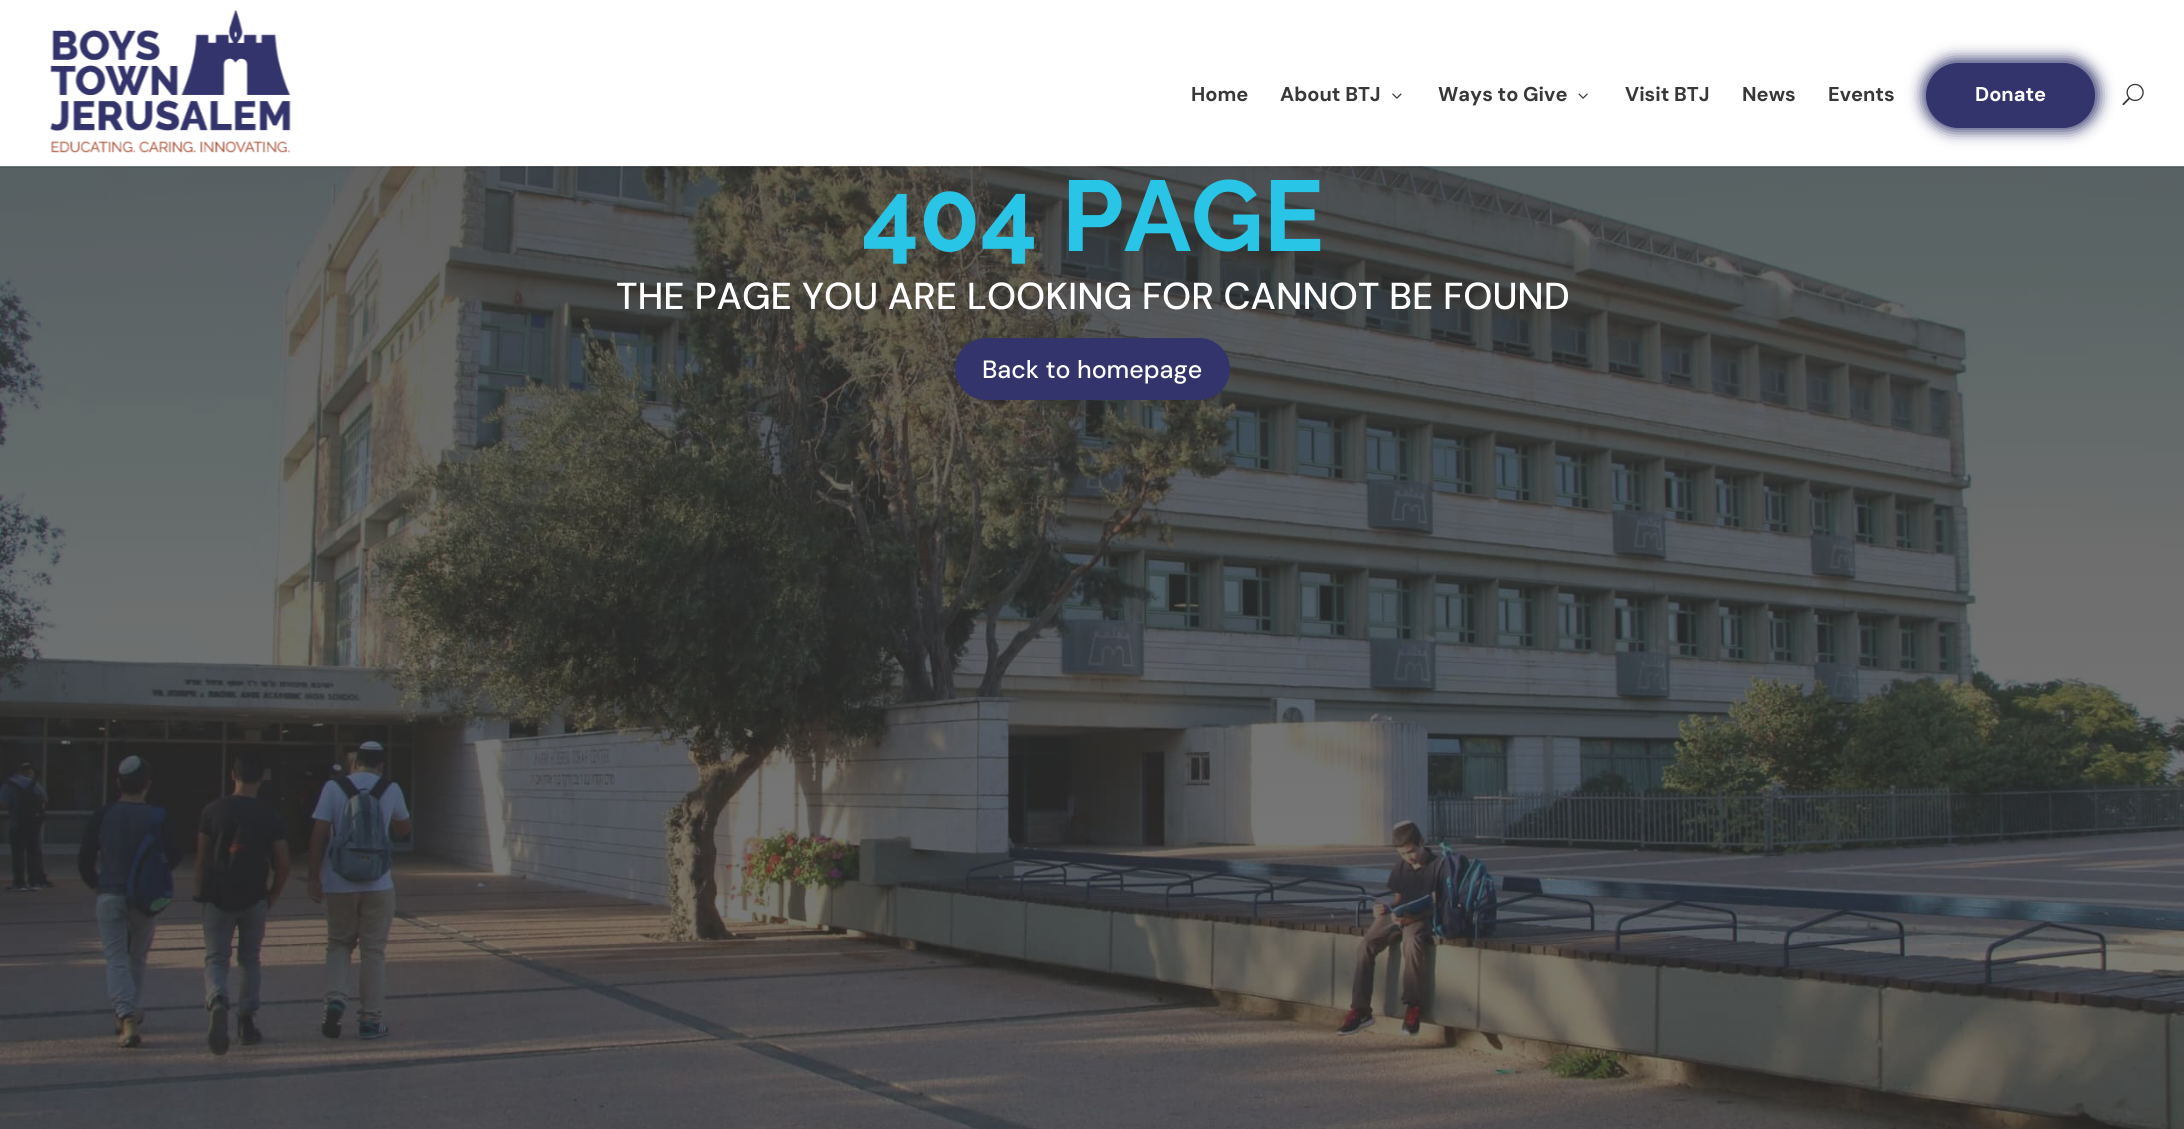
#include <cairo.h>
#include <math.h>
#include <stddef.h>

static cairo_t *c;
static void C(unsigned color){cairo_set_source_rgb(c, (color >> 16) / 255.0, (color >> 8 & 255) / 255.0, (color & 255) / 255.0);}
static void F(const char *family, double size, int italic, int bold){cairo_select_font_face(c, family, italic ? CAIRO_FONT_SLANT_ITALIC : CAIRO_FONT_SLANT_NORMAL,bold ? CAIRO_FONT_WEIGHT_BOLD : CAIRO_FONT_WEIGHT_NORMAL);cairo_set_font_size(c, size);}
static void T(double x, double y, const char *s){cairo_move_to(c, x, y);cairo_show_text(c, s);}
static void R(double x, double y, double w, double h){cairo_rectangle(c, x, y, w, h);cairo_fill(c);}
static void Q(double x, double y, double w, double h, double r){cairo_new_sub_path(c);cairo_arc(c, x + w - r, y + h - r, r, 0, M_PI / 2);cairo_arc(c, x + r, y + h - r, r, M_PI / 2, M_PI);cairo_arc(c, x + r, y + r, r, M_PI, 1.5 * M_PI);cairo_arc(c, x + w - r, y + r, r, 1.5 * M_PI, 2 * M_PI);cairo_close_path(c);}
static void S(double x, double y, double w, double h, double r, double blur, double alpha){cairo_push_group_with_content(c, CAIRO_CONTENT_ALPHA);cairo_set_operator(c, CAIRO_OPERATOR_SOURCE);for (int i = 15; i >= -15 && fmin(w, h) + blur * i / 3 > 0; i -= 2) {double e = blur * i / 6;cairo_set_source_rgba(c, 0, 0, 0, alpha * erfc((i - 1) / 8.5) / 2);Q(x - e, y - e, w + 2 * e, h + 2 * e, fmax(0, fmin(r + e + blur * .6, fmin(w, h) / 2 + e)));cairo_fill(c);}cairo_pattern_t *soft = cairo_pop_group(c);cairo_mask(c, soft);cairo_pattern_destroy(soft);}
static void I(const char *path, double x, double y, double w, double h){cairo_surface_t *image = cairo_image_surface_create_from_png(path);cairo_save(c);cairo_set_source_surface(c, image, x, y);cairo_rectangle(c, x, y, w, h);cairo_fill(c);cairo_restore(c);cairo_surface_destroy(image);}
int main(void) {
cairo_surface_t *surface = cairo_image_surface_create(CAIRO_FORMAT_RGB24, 2184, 1129);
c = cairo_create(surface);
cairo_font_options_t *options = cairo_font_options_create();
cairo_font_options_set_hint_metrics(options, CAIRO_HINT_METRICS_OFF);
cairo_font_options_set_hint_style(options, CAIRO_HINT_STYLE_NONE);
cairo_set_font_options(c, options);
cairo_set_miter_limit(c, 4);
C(0xffffff);
cairo_paint(c);
I("5.png",0,166,2184,963);
cairo_set_source_rgba(c,0,0,0,0.1);
R(0,166,2184,2);
I("1.png",50,10,241,143);
F("DM Sans",20,0,1);
C(0x383838);
T(1191,101,"Home");
T(1280,101,"About BTJ");
I("2.png",1392,93,10,6);
T(1438,101,"Ways to Give");
I("3.png",1578,93,10,6);
T(1625,101,"Visit BTJ");
T(1742,101,"News");
T(1828,101,"Events");
C(0x32346b);
S(1923,59,176,72,36,7.5,1);
C(0x32346b);
Q(1926.5,63.5,168,64,32);
cairo_fill_preserve(c);
cairo_set_line_width(c,1);
cairo_stroke(c);
C(0xffffff);
T(1975,101,"Donate");
I("4.png",2122,83,22,23);
F("Raleway",100,0,1);
C(0x28c5e6);
T(862,251,"404 PAGE");
F("DM Sans Medium",37.5,0,0);
C(0xffffff);
T(616,309,"THE PAGE YOU ARE LOOKING FOR CANNOT BE FOUND");
C(0x32346b);
Q(956.5,339.5,272,59,29.5);
cairo_fill_preserve(c);
cairo_set_line_width(c,3);
cairo_stroke(c);
F("DM Sans Medium",25,0,0);
C(0xffffff);
T(982,378,"Back to homepage");
cairo_surface_write_to_png(surface, "o.png");
cairo_font_options_destroy(options);
cairo_destroy(c);
cairo_surface_destroy(surface);
return 0;
}
